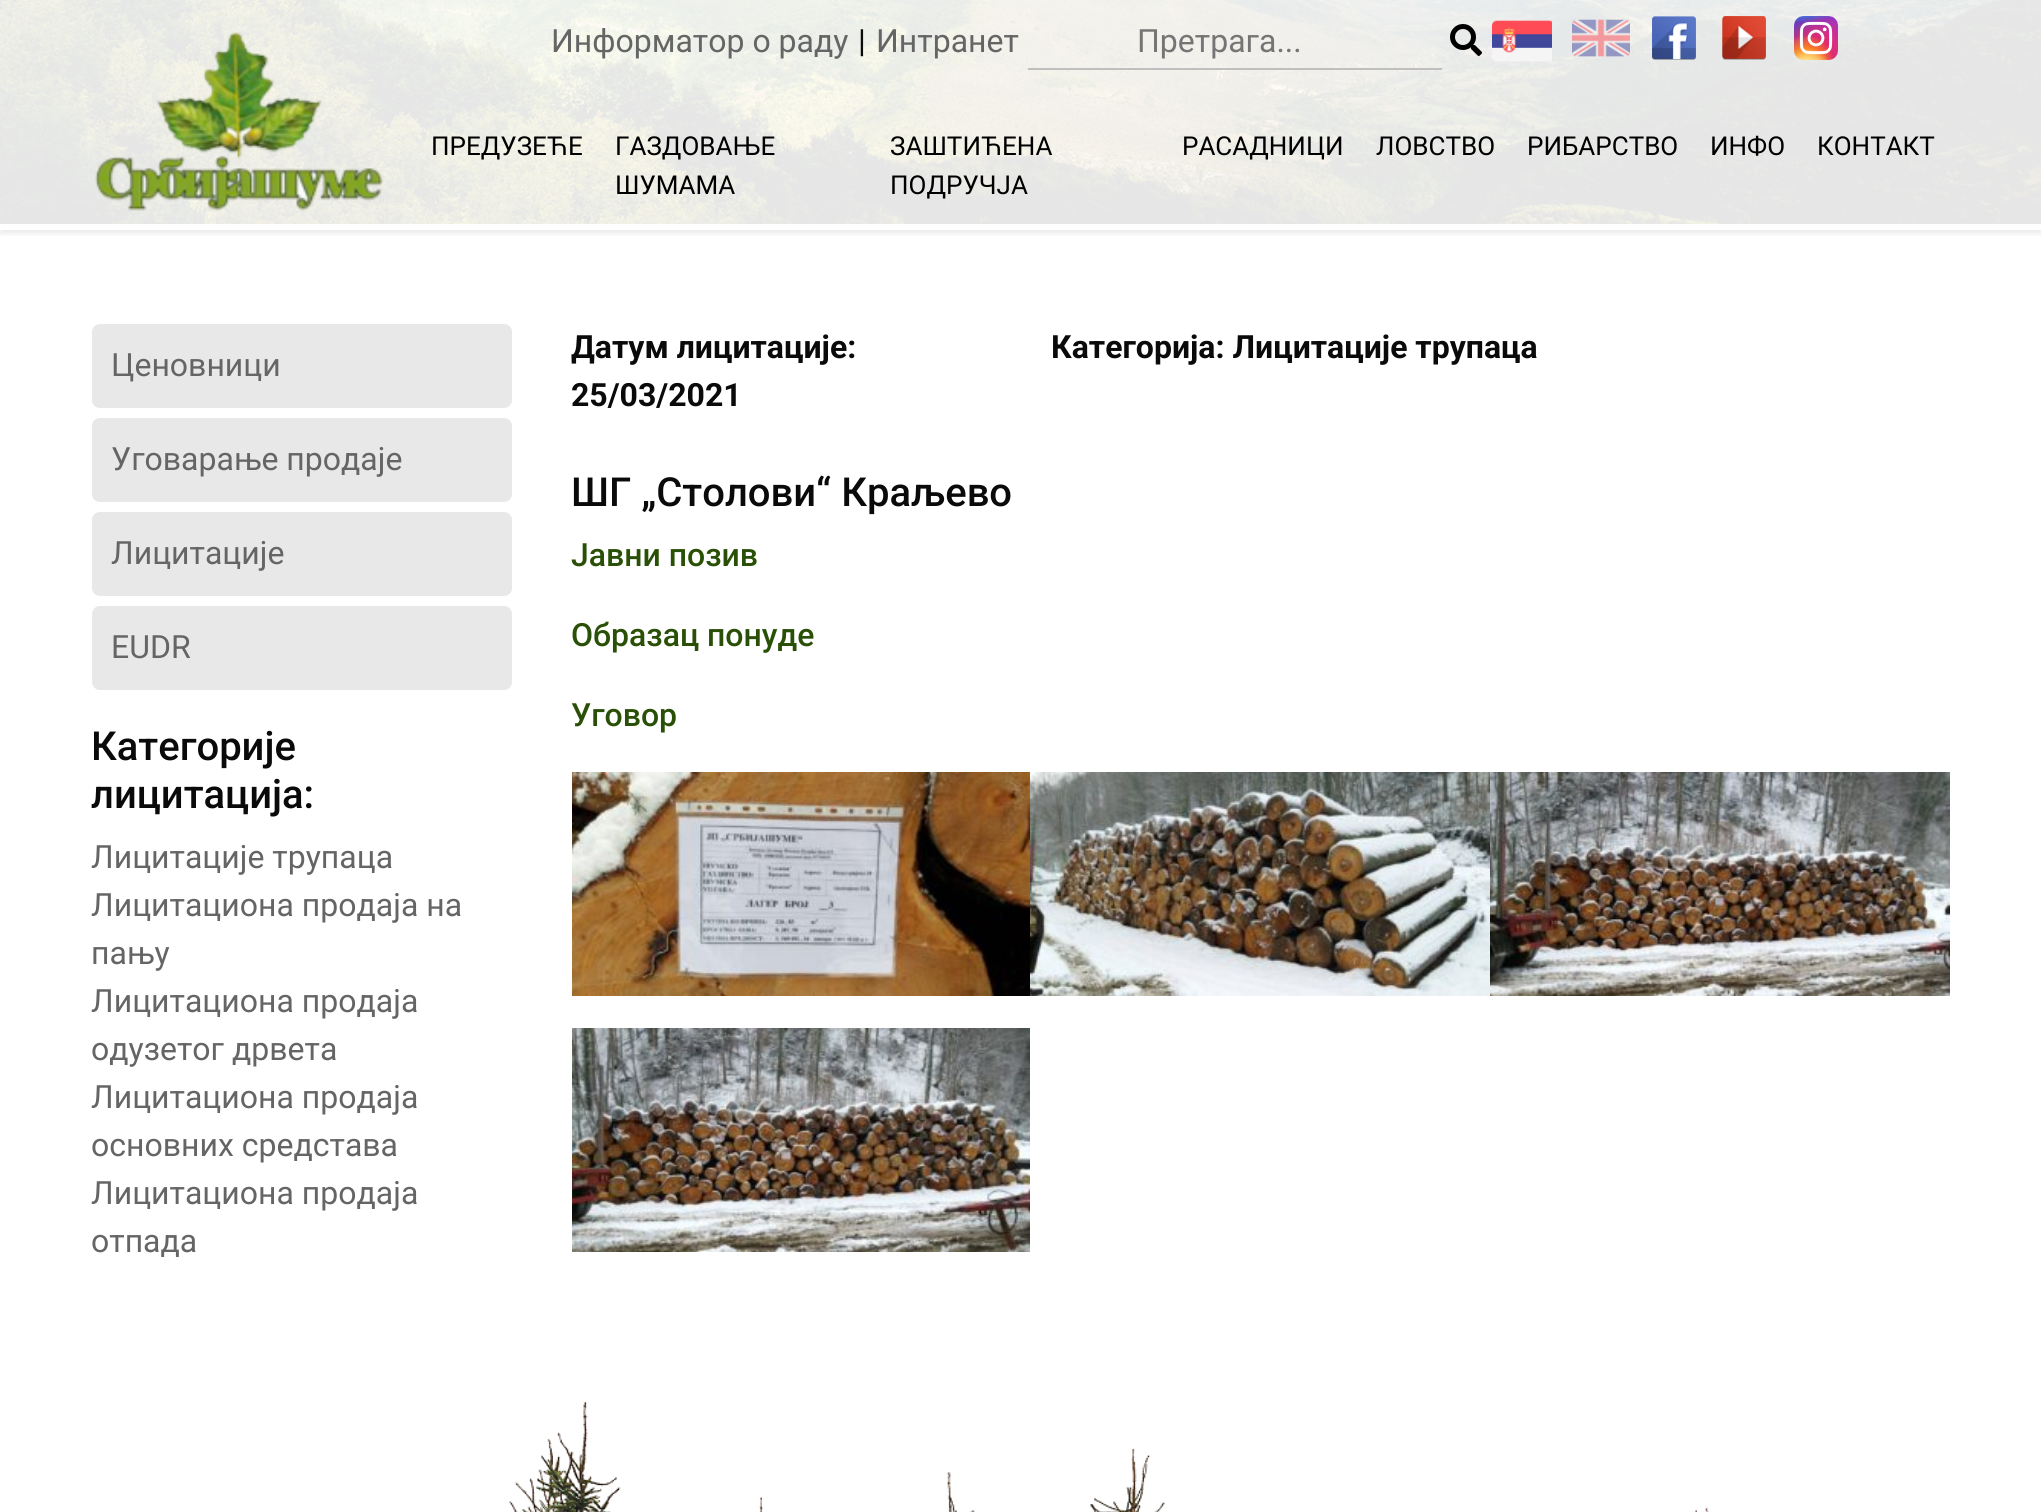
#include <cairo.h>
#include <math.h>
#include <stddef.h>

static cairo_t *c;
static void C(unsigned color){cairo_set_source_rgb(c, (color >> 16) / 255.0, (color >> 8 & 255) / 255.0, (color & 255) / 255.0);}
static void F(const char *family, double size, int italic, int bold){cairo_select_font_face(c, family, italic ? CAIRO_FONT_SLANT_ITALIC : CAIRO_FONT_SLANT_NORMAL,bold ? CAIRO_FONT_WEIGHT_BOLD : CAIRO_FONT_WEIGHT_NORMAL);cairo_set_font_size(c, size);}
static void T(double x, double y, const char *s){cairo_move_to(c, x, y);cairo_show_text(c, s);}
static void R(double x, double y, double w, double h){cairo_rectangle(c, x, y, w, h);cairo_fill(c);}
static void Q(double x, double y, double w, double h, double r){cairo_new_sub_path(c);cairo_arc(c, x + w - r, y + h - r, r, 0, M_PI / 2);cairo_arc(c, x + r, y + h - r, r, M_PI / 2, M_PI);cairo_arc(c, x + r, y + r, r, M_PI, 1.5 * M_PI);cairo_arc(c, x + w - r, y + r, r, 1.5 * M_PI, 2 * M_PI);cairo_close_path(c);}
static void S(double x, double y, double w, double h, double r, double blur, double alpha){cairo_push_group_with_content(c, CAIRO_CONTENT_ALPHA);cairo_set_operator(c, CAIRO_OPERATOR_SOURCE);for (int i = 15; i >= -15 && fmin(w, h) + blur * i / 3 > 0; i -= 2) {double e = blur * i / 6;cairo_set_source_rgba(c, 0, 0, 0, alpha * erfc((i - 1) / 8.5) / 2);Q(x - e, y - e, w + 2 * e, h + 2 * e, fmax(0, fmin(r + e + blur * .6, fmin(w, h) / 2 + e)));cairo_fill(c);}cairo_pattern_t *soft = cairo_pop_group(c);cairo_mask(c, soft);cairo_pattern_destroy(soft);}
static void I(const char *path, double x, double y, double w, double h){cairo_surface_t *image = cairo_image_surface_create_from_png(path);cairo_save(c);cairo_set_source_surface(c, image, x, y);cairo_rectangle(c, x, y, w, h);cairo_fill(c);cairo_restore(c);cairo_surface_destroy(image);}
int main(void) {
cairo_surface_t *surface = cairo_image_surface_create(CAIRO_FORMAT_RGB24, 2041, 1512);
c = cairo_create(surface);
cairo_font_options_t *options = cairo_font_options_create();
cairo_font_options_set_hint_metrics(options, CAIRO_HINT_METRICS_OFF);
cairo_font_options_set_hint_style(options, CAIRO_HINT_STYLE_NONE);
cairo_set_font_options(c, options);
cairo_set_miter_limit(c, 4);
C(0xffffff);
cairo_paint(c);
I("8.png",0,0,2041,224);
cairo_save(c);
cairo_rectangle(c,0,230,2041,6);
cairo_clip(c);
C(0x000000);
S(0,4,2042,230,0,3,.08);
cairo_restore(c);
I("1.png",95,32,289,179);
F("Roboto",32,0,0);
C(0x656565);
T(551,52,"Информатор о раду");
C(0x0a0a0a);
T(858,52,"|");
C(0x656565);
T(876,52,"Интранет");
C(0xbfbfbf);
R(1028,68,414,2);
C(0x757575);
T(1137,52,"Претрага...");
I("2.png",1450,24,32,32);
I("3.png",1492,20,60,42);
I("4.png",1572,19,58,38);
I("5.png",1652,16,44,44);
I("6.png",1722,16,44,44);
I("7.png",1794,16,44,44);
F("Roboto",26,0,0);
C(0x000000);
T(431,155,"ПРЕДУЗЕЋЕ");
T(615,155,"ГАЗДОВАЊЕ");
T(615,194,"ШУМАМА");
T(890,155,"ЗАШТИЋЕНА");
T(890,194,"ПОДРУЧЈА");
T(1182,155,"РАСАДНИЦИ");
T(1376,155,"ЛОВСТВО");
T(1527,155,"РИБАРСТВО");
T(1710,155,"ИНФО");
T(1817,155,"КОНТАКТ");
C(0xe8e8e8);
Q(92,324,420,84,8);
cairo_fill(c);
F("Roboto",32,0,0);
C(0x656565);
T(111,376,"Ценовници");
C(0xe8e8e8);
Q(92,418,420,84,8);
cairo_fill(c);
C(0x656565);
T(111,470,"Уговарање продаје");
C(0xe8e8e8);
Q(92,512,420,84,8);
cairo_fill(c);
C(0x656565);
T(111,564,"Лицитације");
C(0xe8e8e8);
Q(92,606,420,84,8);
cairo_fill(c);
C(0x656565);
T(111,658,"EUDR");
F("Roboto Medium",40,0,0);
C(0x0a0a0a);
T(91,760,"Категорије");
T(91,808,"лицитација:");
F("Roboto",32,0,0);
C(0x656565);
T(91,868,"Лицитације трупаца");
T(91,916,"Лицитациона продаја на");
T(91,964,"пању");
T(91,1012,"Лицитациона продаја");
T(91,1060,"одузетог дрвета");
T(91,1108,"Лицитациона продаја");
T(91,1156,"основних средстава");
T(91,1204,"Лицитациона продаја");
T(91,1252,"отпада");
F("Roboto",32,0,1);
C(0x0a0a0a);
T(571,358,"Датум лицитације:");
T(571,406,"25/03/2021");
T(1051,358,"Категорија: Лицитације трупаца");
F("Roboto Medium",40,0,0);
T(571,506,"ШГ „Столови“ Краљево");
F("Roboto Medium",32,0,0);
C(0x295006);
T(571,566,"Јавни позив");
T(571,646,"Образац понуде");
T(571,726,"Уговор");
I("9.png",572,772,458,224);
I("10.png",1030,772,460,224);
I("11.png",1490,772,460,224);
I("12.png",572,1028,458,224);
I("13.png",509,1402,1200,110);
cairo_surface_write_to_png(surface, "o.png");
cairo_font_options_destroy(options);
cairo_destroy(c);
cairo_surface_destroy(surface);
return 0;
}
